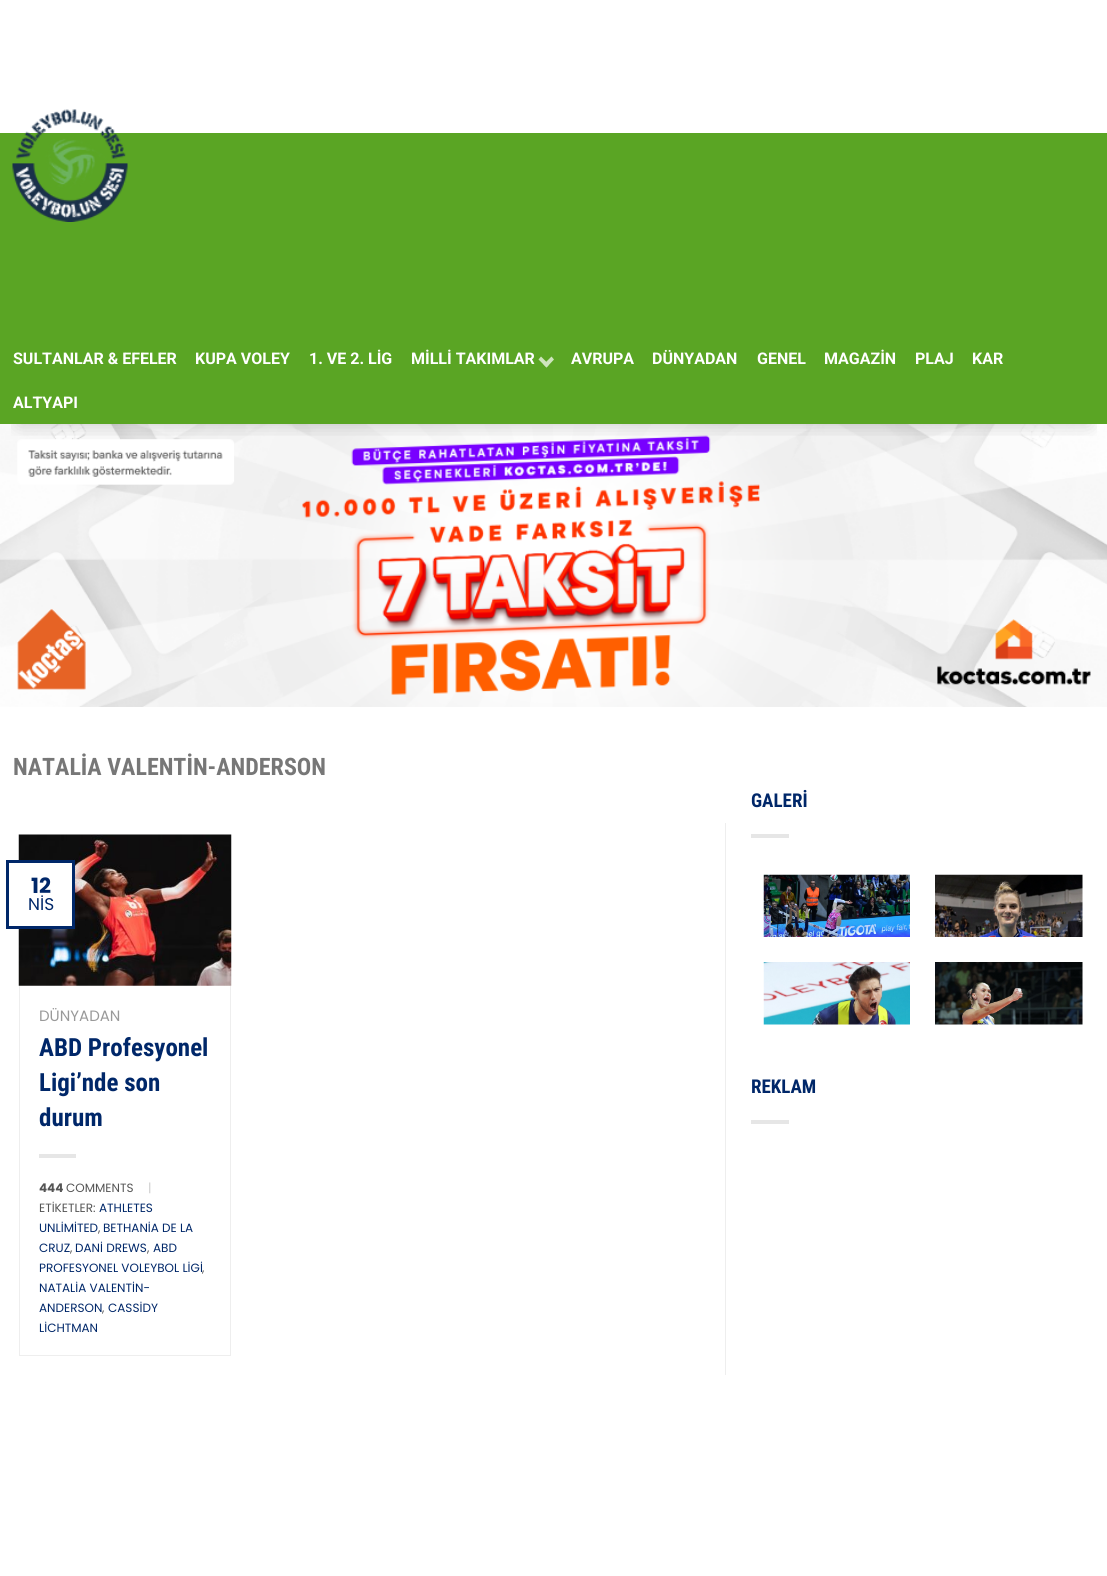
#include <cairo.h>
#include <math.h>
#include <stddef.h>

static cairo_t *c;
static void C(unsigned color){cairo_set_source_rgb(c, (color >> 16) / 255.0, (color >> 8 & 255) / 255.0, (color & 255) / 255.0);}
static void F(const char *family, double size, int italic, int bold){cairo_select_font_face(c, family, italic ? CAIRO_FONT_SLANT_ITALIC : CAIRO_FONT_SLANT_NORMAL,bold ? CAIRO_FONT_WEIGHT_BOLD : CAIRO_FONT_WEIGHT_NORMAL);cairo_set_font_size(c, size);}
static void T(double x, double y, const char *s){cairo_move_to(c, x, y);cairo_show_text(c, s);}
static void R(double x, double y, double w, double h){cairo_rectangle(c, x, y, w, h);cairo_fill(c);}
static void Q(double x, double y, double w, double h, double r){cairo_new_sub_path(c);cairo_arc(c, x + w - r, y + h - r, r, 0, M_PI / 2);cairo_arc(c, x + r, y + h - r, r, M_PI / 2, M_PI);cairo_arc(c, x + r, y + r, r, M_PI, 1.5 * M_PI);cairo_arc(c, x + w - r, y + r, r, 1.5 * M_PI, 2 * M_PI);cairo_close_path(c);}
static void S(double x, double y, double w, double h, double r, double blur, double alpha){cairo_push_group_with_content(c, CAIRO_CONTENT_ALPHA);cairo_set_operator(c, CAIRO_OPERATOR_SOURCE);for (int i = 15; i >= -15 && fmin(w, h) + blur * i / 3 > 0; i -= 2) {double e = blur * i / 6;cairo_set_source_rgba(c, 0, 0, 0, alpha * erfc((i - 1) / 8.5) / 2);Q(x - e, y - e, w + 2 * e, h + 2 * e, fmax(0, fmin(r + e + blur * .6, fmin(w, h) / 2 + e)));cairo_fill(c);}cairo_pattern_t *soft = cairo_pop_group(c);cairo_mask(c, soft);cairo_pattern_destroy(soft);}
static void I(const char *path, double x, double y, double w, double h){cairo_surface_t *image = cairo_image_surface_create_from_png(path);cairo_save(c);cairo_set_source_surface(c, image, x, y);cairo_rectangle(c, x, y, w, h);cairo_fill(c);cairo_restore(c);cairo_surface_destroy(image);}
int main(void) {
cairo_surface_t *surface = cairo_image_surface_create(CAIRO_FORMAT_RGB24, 1107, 1576);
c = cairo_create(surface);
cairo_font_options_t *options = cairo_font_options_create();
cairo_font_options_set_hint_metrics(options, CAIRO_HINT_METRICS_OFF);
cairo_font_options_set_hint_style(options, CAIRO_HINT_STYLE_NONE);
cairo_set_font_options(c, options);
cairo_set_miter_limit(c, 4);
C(0xffffff);
cairo_paint(c);
I("2.png",0,424,1107,283);
cairo_save(c);
cairo_rectangle(c,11,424,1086,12);
cairo_clip(c);
C(0x000000);
S(19,-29,1070,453,0,9.5,.2);
cairo_restore(c);
C(0x5aa524);
R(0,133,1107,291);
I("1.png",12,109,116,113);
F("Roboto",16,0,1);
C(0xffffff);
T(13,364,"SULTANLAR & EFELER");
T(195,364,"KUPA VOLEY");
T(309,364,"1. VE 2. LİG");
T(411,364,"MİLLİ TAKIMLAR");
C(0xcee4bd);
cairo_new_path(c);
cairo_move_to(c,551.5,356.5);
cairo_line_to(c,554,359.5);
cairo_line_to(c,546.5,367.5);
cairo_line_to(c,543.5,364.5);
cairo_close_path(c);
cairo_fill(c);
cairo_new_path(c);
cairo_move_to(c,541,356.5);
cairo_line_to(c,549,364.5);
cairo_line_to(c,546.5,367.5);
cairo_line_to(c,538.5,359.5);
cairo_close_path(c);
cairo_fill(c);
C(0xffffff);
T(571,364,"AVRUPA");
T(652,364,"DÜNYADAN");
T(757,364,"GENEL");
T(824,364,"MAGAZİN");
T(915,364,"PLAJ");
T(972,364,"KAR");
T(13,408,"ALTYAPI");
F("Roboto Condensed",24,0,1);
C(0x777777);
T(13,775,"NATALİA VALENTİN-ANDERSON");
C(0xeeeeee);
R(725,823,1,552);
I("3.png",18,834,214,152);
C(0xffffff);
R(18,863,54,63);
cairo_rectangle(c,7.5,861.5,66,66);
C(0x002769);
cairo_set_line_width(c,3);
cairo_stroke(c);
F("Poppins",21,0,1);
T(31,893,"12");
F("Poppins",17,0,0);
T(28,910,"NİS");
C(0xeeeeee);
R(230,986,1,370);
R(19,1355,212,1);
R(19,986,1,370);
F("Poppins",15,0,0);
C(0x999999);
T(39,1021,"DÜNYADAN");
F("Roboto Condensed",25,0,1);
C(0x002769);
T(39,1056,"ABD Profesyonel");
T(39,1091,"Ligi’nde son");
T(39,1126,"durum");
C(0xe6e6e6);
R(39,1154,37,4);
F("Poppins",12,0,1);
C(0x555555);
T(39,1192,"444");
F("Poppins",12,0,0);
T(66,1192,"COMMENTS");
C(0xcccccc);
T(148,1192,"|");
C(0x555555);
T(39,1212,"ETİKETLER:");
C(0x002769);
T(99,1212,"ATHLETES");
T(39,1232,"UNLİMİTED");
C(0x555555);
T(98,1232,",");
C(0x002769);
T(103,1232,"BETHANİA DE LA");
T(39,1252,"CRUZ");
C(0x555555);
T(70,1252,",");
C(0x002769);
T(75,1252,"DANİ DREWS");
C(0x555555);
T(147,1252,",");
C(0x002769);
T(153,1252,"ABD");
T(39,1272,"PROFESYONEL VOLEYBOL LİGİ");
C(0x555555);
T(202,1272,",");
C(0x002769);
T(39,1292,"NATALİA VALENTİN-");
T(39,1312,"ANDERSON");
C(0x555555);
T(102,1312,",");
C(0x002769);
T(108,1312,"CASSİDY");
T(39,1332,"LİCHTMAN");
F("Roboto Condensed",19,0,1);
T(751,807,"GALERİ");
C(0xe6e6e6);
R(751,834,38,4);
I("4.png",763,874,147,63);
I("5.png",935,874,148,63);
I("6.png",763,962,147,63);
I("7.png",935,962,148,63);
C(0x002769);
T(751,1093,"REKLAM");
C(0xe6e6e6);
R(751,1120,38,4);
cairo_surface_write_to_png(surface, "o.png");
cairo_font_options_destroy(options);
cairo_destroy(c);
cairo_surface_destroy(surface);
return 0;
}
